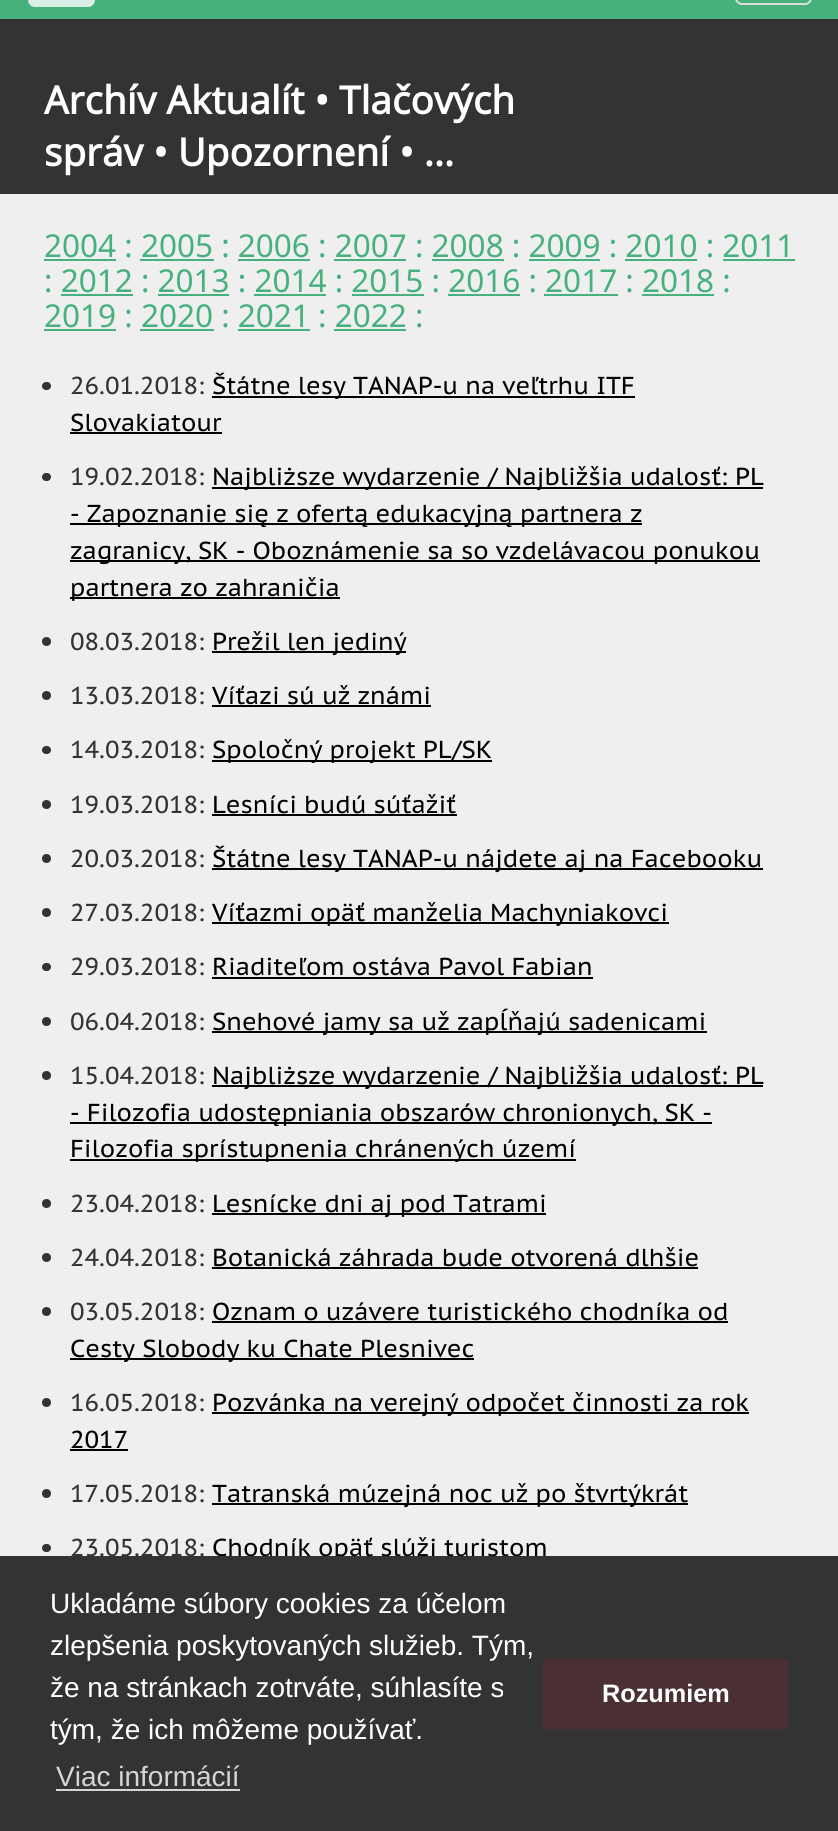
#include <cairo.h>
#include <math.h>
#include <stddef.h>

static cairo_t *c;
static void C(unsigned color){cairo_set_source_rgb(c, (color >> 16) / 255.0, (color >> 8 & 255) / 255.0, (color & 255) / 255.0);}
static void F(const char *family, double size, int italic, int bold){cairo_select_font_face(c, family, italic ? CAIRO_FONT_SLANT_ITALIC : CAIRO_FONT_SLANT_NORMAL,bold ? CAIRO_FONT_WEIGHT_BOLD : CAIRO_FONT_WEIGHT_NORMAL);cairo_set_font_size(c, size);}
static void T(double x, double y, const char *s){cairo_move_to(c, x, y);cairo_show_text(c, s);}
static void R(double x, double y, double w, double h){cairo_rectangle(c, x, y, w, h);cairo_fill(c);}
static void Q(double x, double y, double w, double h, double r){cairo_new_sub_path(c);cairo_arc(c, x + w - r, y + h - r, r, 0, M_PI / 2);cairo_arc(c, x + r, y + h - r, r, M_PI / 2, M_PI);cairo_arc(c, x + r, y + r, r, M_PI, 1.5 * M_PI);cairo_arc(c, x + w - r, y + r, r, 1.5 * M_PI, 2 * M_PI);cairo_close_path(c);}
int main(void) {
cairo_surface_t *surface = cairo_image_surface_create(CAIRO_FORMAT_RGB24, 838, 1831);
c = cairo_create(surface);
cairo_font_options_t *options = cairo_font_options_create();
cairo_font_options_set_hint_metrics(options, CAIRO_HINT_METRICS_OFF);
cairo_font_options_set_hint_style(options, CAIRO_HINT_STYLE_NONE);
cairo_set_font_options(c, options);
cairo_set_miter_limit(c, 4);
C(0xefefef);
cairo_paint(c);
C(0x46b17d);
R(0,0,838,19);
C(0xdaefe5);
Q(28,-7,67,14,7);
cairo_fill(c);
Q(736,-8,75,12,6);
C(0xdddddd);
cairo_stroke(c);
C(0x333333);
R(0,19,838,175);
F("Noto Sans",38.5,0,1);
C(0xffffff);
T(44,114,"Archív Aktualít • Tlačových");
T(44,166,"správ • Upozornení • …");
F("Noto Sans",31.5,0,0);
C(0x46b17d);
T(44,257,"2004 : 2005 : 2006 : 2007 : 2008 : 2009 : 2010 : 2011");
R(44,259,72,2);
R(140,259,74,2);
R(238,259,72,2);
R(334,259,72,2);
R(432,259,72,2);
R(529,259,71,2);
R(625,259,72,2);
R(723,259,72,2);
T(44,292,": 2012 : 2013 : 2014 : 2015 : 2016 : 2017 : 2018 :");
R(61,294,72,2);
R(158,294,71,2);
R(254,294,72,2);
R(352,294,72,2);
R(448,294,72,2);
R(544,294,74,2);
R(642,294,72,2);
T(44,327,"2019 : 2020 : 2021 : 2022 :");
R(44,329,72,2);
R(140,329,74,2);
R(238,329,72,2);
R(334,329,72,2);
C(0x333333);
Q(42,382,9,8,4);
cairo_fill(c);
F("PT Sans Caption",24.5,0,0);
T(70,394,"26.01.2018:");
C(0x000000);
R(212,396,423,2);
T(212,394,"Štátne lesy TANAP-u na veľtrhu ITF");
T(70,431,"Slovakiatour");
R(70,432,152,2);
C(0x333333);
Q(42,473,9,8,4);
cairo_fill(c);
T(70,485,"19.02.2018:");
C(0x000000);
R(212,487,551,2);
T(212,485,"Najbliższe wydarzenie / Najbližšia udalosť: PL");
R(70,523,572,2);
T(70,522,"- Zapoznanie się z ofertą edukacyjną partnera z");
R(70,560,690,2);
T(70,559,"zagranicy, SK - Oboznámenie sa so vzdelávacou ponukou");
R(70,597,270,2);
T(70,596,"partnera zo zahraničia");
C(0x333333);
cairo_new_path(c);
cairo_arc(c,46.5,641.5,4.5,0,2 * M_PI);
cairo_fill(c);
T(70,650,"08.03.2018:");
C(0x000000);
R(212,651,194,2);
T(212,650,"Prežil len jediný");
C(0x333333);
cairo_new_path(c);
cairo_arc(c,46.5,695.5,4.5,0,2 * M_PI);
cairo_fill(c);
T(70,704,"13.03.2018:");
C(0x000000);
T(212,704,"Víťazi sú už známi");
R(212,705,219,2);
C(0x333333);
Q(42,746,9,8,4);
cairo_fill(c);
T(70,758,"14.03.2018:");
C(0x000000);
R(212,760,280,2);
T(212,758,"Spoločný projekt PL/SK");
C(0x333333);
cairo_new_path(c);
cairo_arc(c,46.5,804.5,4.5,0,2 * M_PI);
cairo_fill(c);
T(70,813,"19.03.2018:");
C(0x000000);
T(212,813,"Lesníci budú súťažiť");
R(212,814,245,2);
C(0x333333);
cairo_new_path(c);
cairo_arc(c,46.5,858.5,4.5,0,2 * M_PI);
cairo_fill(c);
T(70,867,"20.03.2018:");
C(0x000000);
R(212,868,551,2);
T(212,867,"Štátne lesy TANAP-u nájdete aj na Facebooku");
C(0x333333);
cairo_new_path(c);
cairo_arc(c,46.5,912.5,4.5,0,2 * M_PI);
cairo_fill(c);
T(70,921,"27.03.2018:");
C(0x000000);
R(212,922,457,2);
T(212,921,"Víťazmi opäť manželia Machyniakovci");
C(0x333333);
Q(42,963,9,8,4);
cairo_fill(c);
T(70,975,"29.03.2018:");
C(0x000000);
T(212,975,"Riaditeľom ostáva Pavol Fabian");
R(212,977,381,2);
C(0x333333);
cairo_new_path(c);
cairo_arc(c,46.5,1021.5,4.5,0,2 * M_PI);
cairo_fill(c);
T(70,1030,"06.04.2018:");
C(0x000000);
R(212,1031,495,2);
T(212,1030,"Snehové jamy sa už zapĺňajú sadenicami");
C(0x333333);
cairo_new_path(c);
cairo_arc(c,46.5,1075.5,4.5,0,2 * M_PI);
cairo_fill(c);
T(70,1084,"15.04.2018:");
C(0x000000);
R(212,1085,551,2);
T(212,1084,"Najbliższe wydarzenie / Najbližšia udalosť: PL");
R(70,1122,642,2);
T(70,1121,"- Filozofia udostępniania obszarów chronionych, SK -");
R(70,1159,506,2);
T(70,1157,"Filozofia sprístupnenia chránených území");
C(0x333333);
cairo_new_path(c);
cairo_arc(c,46.5,1203.5,4.5,0,2 * M_PI);
cairo_fill(c);
T(70,1212,"23.04.2018:");
C(0x000000);
R(212,1213,334,2);
T(212,1212,"Lesnícke dni aj pod Tatrami");
C(0x333333);
cairo_new_path(c);
cairo_arc(c,46.5,1257.5,4.5,0,2 * M_PI);
cairo_fill(c);
T(70,1266,"24.04.2018:");
C(0x000000);
T(212,1266,"Botanická záhrada bude otvorená dlhšie");
R(212,1267,486,2);
C(0x333333);
cairo_new_path(c);
cairo_arc(c,46.5,1311.5,4.5,0,2 * M_PI);
cairo_fill(c);
T(70,1320,"03.05.2018:");
C(0x000000);
T(212,1320,"Oznam o uzávere turistického chodníka od");
R(212,1321,516,2);
R(70,1358,404,2);
T(70,1357,"Cesty Slobody ku Chate Plesnivec");
C(0x333333);
cairo_new_path(c);
cairo_arc(c,46.5,1402.5,4.5,0,2 * M_PI);
cairo_fill(c);
T(70,1411,"16.05.2018:");
C(0x000000);
R(212,1412,537,2);
T(212,1411,"Pozvánka na verejný odpočet činnosti za rok");
T(70,1448,"2017");
R(70,1449,58,2);
C(0x333333);
cairo_new_path(c);
cairo_arc(c,46.5,1493.5,4.5,0,2 * M_PI);
cairo_fill(c);
T(70,1502,"17.05.2018:");
C(0x000000);
R(212,1503,476,2);
T(212,1502,"Tatranská múzejná noc už po štvrtýkrát");
C(0x333333);
Q(42,1544,9,8,4);
cairo_fill(c);
T(70,1556,"23.05.2018:");
C(0x000000);
T(212,1556,"Chodník opäť slúži turistom");
C(0x333333);
R(0,1556,838,275);
F("Liberation Sans",28,0,0);
C(0xffffff);
T(50,1613,"Ukladáme súbory cookies za účelom");
T(50,1655,"zlepšenia poskytovaných služieb. Tým,");
T(50,1697,"že na stránkach zotrváte, súhlasíte s");
T(50,1739,"tým, že ich môžeme používať.");
C(0xd6d6d6);
T(56,1786,"Viac informácií");
R(56,1789,184,2);
C(0x4a2f34);
R(543,1659,245,70);
F("Liberation Sans",25.25,0,1);
C(0xffffff);
T(602,1702,"Rozumiem");
cairo_surface_write_to_png(surface, "o.png");
cairo_font_options_destroy(options);
cairo_destroy(c);
cairo_surface_destroy(surface);
return 0;
}
